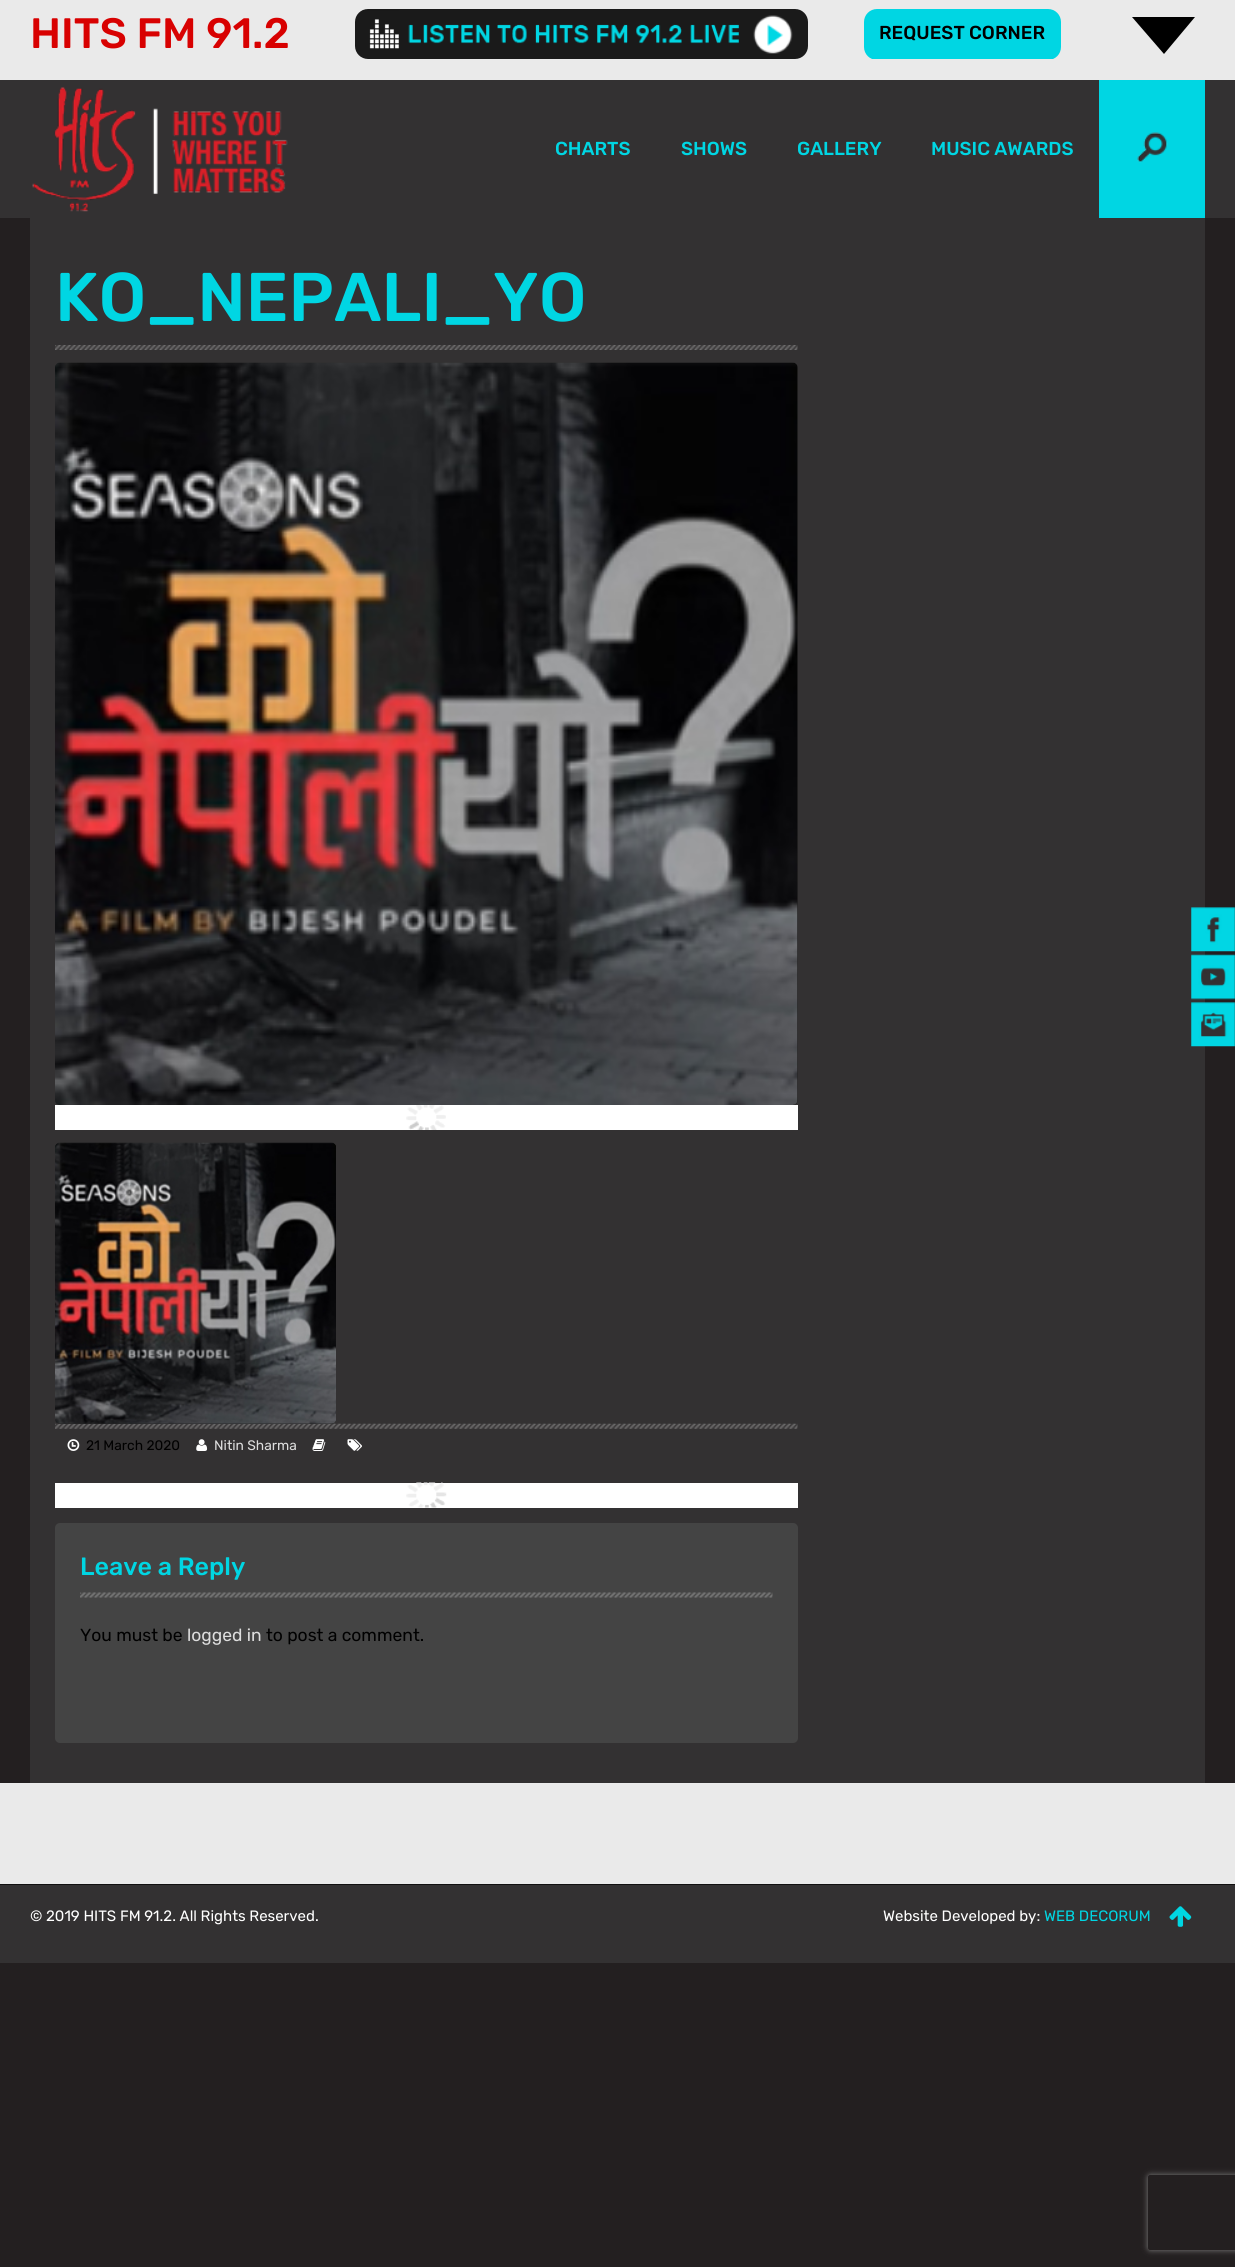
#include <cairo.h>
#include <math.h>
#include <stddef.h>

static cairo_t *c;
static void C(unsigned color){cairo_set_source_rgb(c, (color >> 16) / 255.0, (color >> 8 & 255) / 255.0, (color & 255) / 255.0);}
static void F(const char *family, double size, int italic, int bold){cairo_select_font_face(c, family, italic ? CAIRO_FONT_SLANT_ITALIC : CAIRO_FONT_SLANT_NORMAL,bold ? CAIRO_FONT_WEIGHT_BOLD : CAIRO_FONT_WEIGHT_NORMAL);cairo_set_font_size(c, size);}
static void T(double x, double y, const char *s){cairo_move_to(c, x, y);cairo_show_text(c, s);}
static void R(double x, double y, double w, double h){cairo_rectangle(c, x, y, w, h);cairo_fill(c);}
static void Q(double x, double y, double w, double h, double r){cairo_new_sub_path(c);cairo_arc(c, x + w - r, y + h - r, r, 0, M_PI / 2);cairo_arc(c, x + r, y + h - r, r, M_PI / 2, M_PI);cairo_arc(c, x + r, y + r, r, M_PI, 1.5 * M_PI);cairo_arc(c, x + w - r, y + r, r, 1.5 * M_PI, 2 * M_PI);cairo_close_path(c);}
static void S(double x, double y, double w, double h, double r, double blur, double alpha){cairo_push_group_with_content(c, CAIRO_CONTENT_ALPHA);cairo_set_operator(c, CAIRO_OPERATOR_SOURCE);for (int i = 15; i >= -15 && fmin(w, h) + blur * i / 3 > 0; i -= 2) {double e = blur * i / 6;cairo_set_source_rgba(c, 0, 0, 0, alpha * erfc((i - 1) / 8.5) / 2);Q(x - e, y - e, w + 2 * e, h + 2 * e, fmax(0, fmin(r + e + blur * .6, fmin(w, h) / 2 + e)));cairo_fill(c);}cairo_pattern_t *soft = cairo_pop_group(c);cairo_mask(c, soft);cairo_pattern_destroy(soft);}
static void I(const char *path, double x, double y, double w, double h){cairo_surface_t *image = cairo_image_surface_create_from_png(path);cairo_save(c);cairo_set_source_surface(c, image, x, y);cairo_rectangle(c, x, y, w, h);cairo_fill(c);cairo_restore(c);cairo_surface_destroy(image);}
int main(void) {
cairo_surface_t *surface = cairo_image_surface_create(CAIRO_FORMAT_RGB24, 1235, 2267);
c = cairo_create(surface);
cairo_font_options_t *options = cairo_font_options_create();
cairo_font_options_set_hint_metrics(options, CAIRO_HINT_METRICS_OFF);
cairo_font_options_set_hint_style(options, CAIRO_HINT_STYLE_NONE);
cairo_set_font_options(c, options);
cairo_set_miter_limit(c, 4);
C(0x231f20);
cairo_paint(c);
C(0xeaeaea);
R(0,0,1235,80);
F("Rubik Medium",42.5,0,0);
C(0xd80101);
T(30,48,"HITS FM 91.2");
C(0x1a1a1a);
Q(355,9,453,50,13);
cairo_fill(c);
I("1.png",362,10,37,39);
I("2.png",753,15,40,39);
I("3.png",408,24,331,20);
cairo_save(c);
cairo_rectangle(c,818,9,303,50);
cairo_clip(c);
C(0x00d6e3);
Q(864,9,197,51,13);
cairo_fill(c);
cairo_restore(c);
F("Rubik Medium",18.75,0,0);
C(0x000000);
T(879,39,"REQUEST CORNER");
cairo_new_path(c);
cairo_move_to(c,1132,17);
cairo_line_to(c,1195,17);
cairo_line_to(c,1164,54);
cairo_close_path(c);
cairo_fill(c);
C(0x333132);
R(0,80,1235,138);
I("4.png",32,87,256,125);
C(0x00d6e3);
T(555,155,"CHARTS");
T(681,155,"SHOWS");
T(797,155,"GALLERY");
T(931,155,"MUSIC AWARDS");
R(1099,80,106,138);
I("5.png",1137,132,31,31);
C(0x333132);
R(30,218,1175,1565);
I("6.png",55,345,743,5);
F("Rubik Medium",68.75,0,0);
C(0x00d6e3);
T(55,321,"KO_NEPALI_YO");
C(0x252424);
Q(55,363,743,742,5);
cairo_fill(c);
I("7.png",55,362,743,743);
C(0xffffff);
R(55,1105,743,25);
I("8.png",406,1105,40,25);
I("10.png",55,1423,743,6);
cairo_set_source_rgba(c,0.129,0.129,0.129,0.8);
Q(55,1143,281,281,5);
cairo_fill(c);
I("9.png",55,1142,281,282);
I("11.png",67,1439,13,12);
F("Rubik",13.75,0,0);
C(0x000000);
T(86,1450,"21 March 2020");
I("12.png",196,1439,12,12);
C(0xdddddd);
T(214,1450,"Nitin Sharma");
I("13.png",312,1439,14,12);
I("14.png",347,1439,15,12);
C(0xffffff);
R(55,1483,743,25);
I("15.png",406,1482,41,26);
C(0x444444);
Q(55,1523,743,220,5);
cairo_fill(c);
I("16.png",80,1592,693,6);
F("Rubik Medium",25,0,0);
C(0x00d6e3);
T(80,1575,"Leave a Reply");
F("Rubik",17.5,0,0);
C(0x000000);
T(80,1641,"You must be");
C(0xdddddd);
T(187,1641,"logged in");
C(0x000000);
T(266,1641,"to post a comment.");
I("17.png",1191,907,44,45);
I("18.png",1191,954,44,46);
I("19.png",1191,1002,44,45);
C(0xeaeaea);
R(0,1784,1235,100);
C(0xececec);
R(0,1783,1235,1);
C(0x333132);
R(0,1885,1235,78);
C(0x111111);
R(0,1884,1235,1);
F("Rubik",15,0,0);
C(0xffffff);
T(30,1921,"© 2019 HITS FM 91.2. All Rights Reserved.");
T(883,1921,"Website Developed by:");
C(0x00d6e3);
T(1044,1921,"WEB DECORUM");
I("20.png",1169,1906,23,21);
cairo_save(c);
cairo_set_fill_rule(c,CAIRO_FILL_RULE_EVEN_ODD);
cairo_new_path(c);
cairo_move_to(c,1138,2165);
cairo_line_to(c,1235,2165);
cairo_line_to(c,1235,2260);
cairo_line_to(c,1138,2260);
cairo_close_path(c);
cairo_move_to(c,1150.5,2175);
cairo_line_to(c,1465.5,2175);
cairo_curve_to(c,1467,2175,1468,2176,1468,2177.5);
cairo_line_to(c,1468,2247.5);
cairo_curve_to(c,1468,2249,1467,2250,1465.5,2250);
cairo_line_to(c,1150.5,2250);
cairo_curve_to(c,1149,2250,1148,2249,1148,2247.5);
cairo_line_to(c,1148,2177.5);
cairo_curve_to(c,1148,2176,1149,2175,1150.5,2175);
cairo_close_path(c);
cairo_clip(c);
C(0x808080);
S(1148,2175,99,75,2.5,3,1);
cairo_restore(c);
cairo_surface_write_to_png(surface, "o.png");
cairo_font_options_destroy(options);
cairo_destroy(c);
cairo_surface_destroy(surface);
return 0;
}
